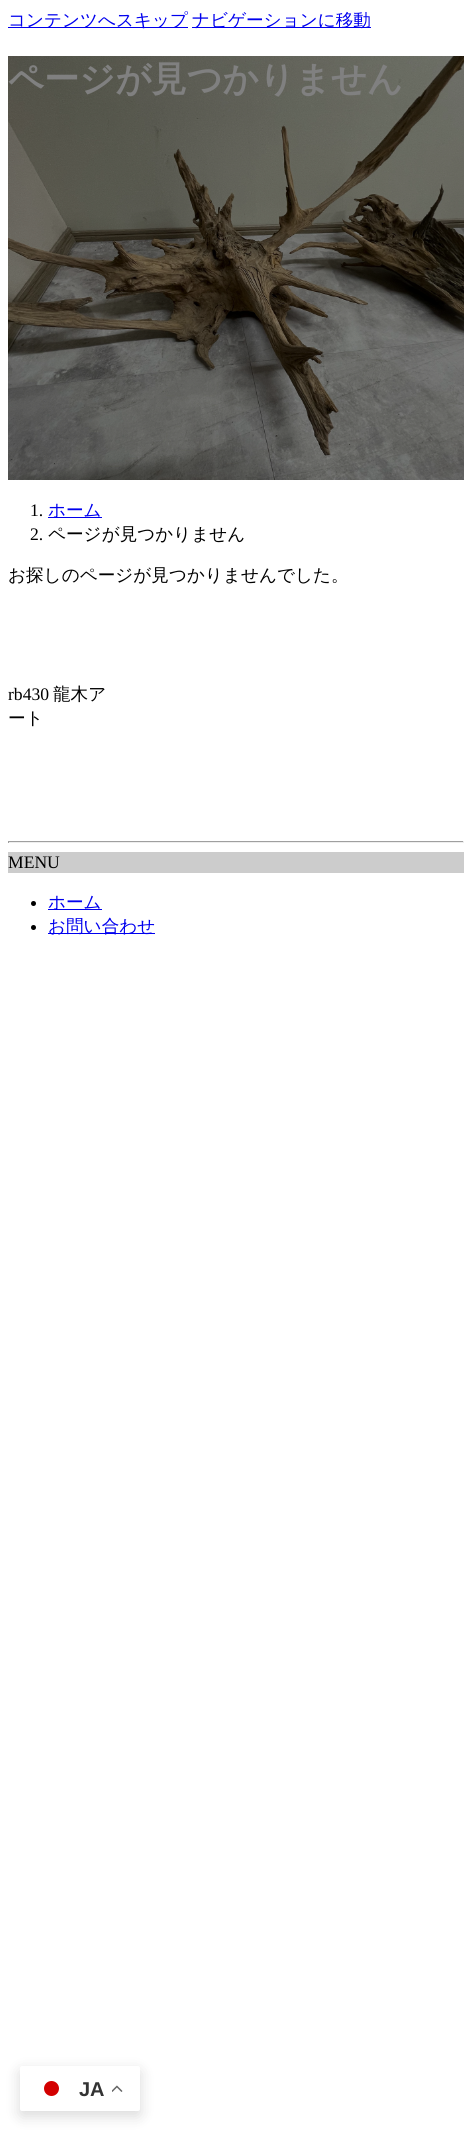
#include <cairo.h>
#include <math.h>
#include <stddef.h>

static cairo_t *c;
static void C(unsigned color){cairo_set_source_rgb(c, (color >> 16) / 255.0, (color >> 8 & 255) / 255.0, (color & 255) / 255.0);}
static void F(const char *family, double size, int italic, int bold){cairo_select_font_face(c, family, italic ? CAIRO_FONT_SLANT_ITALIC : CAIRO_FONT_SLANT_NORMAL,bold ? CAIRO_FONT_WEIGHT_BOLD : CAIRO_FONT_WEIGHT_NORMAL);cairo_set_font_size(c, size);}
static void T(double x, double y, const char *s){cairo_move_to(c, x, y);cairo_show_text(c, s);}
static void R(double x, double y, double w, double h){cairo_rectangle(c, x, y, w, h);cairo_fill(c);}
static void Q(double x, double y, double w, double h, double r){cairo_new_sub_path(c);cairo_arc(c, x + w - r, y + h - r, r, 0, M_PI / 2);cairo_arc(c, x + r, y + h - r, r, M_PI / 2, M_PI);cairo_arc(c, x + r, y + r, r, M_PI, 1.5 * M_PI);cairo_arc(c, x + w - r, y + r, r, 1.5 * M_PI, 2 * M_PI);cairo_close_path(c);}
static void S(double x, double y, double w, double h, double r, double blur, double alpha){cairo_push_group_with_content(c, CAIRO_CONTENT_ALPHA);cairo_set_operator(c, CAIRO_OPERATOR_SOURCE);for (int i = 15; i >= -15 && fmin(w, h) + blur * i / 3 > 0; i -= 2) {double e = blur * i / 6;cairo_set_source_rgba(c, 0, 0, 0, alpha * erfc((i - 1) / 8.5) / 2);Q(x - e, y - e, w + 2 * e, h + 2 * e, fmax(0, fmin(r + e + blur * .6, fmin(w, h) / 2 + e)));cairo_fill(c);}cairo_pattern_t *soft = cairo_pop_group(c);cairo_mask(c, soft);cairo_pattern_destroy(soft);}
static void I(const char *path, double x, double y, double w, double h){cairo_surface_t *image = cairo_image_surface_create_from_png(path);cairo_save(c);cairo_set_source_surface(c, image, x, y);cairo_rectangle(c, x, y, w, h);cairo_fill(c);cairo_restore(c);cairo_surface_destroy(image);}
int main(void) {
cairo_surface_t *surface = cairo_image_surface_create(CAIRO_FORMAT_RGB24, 472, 2136);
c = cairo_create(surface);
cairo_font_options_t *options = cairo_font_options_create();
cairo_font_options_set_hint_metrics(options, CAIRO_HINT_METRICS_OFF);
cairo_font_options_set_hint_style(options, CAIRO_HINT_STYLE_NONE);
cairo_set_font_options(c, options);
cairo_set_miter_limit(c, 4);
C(0xffffff);
cairo_paint(c);
C(0x0000ee);
R(8,27,180,1);
F("WenQuanYi Zen Hei Medium",17.6,0,0);
T(8,26,"コンテンツへスキップ");
R(192,27,179,1);
T(192,26,"ナビゲーションに移動");
I("1.png",8,56,456,424);
F("WenQuanYi Zen Hei",35.25,0,1);
C(0x808080);
T(8,91,"ページが見つかりません");
F("Liberation Serif",17.6,0,0);
C(0x000000);
T(30,516,"1.");
C(0x0000ee);
R(48,517,54,1);
F("WenQuanYi Zen Hei Medium",17.6,0,0);
T(48,516,"ホーム");
F("Liberation Serif",17.6,0,0);
C(0x000000);
T(30,540,"2.");
F("WenQuanYi Zen Hei Medium",17.6,0,0);
T(48,540,"ページが見つかりません");
T(8,581,"お探しのページが見つかりませんでした。");
F("Liberation Serif",17.6,0,0);
T(8,700,"rb430");
F("WenQuanYi Zen Hei Medium",17.6,0,0);
T(53,700,"龍木ア");
T(8,724,"ート");
C(0x9f9f9f);
R(8,841,456,1);
C(0xeeeeee);
R(463,841,1,2);
R(8,842,456,1);
C(0x9f9f9f);
R(8,841,1,2);
C(0xcccccc);
R(8,852,456,21);
F("Liberation Serif",17.6,0,0);
C(0x000000);
T(8,868,"MENU");
cairo_new_path(c);
cairo_arc(c,33.5,903.5,2.5,0,2 * M_PI);
cairo_fill(c);
C(0x0000ee);
R(48,909,54,1);
F("WenQuanYi Zen Hei Medium",17.6,0,0);
T(48,908,"ホーム");
C(0x000000);
cairo_new_path(c);
cairo_arc(c,33.5,927.5,2.5,0,2 * M_PI);
cairo_fill(c);
C(0x0000ee);
R(48,933,107,1);
T(48,932,"お問い合わせ");
C(0x000000);
S(20,2071,120,45,2,7.5,.15);
C(0xffffff);
Q(20,2066,120,45,2);
cairo_fill(c);
C(0xd30000);
cairo_arc(c,51.5,2088.5,7.5,0,2 * M_PI);
cairo_fill(c);
F("Liberation Sans",20,0,1);
C(0x333333);
T(79,2096,"JA");
I("2.png",112,2085,11,7);
cairo_surface_write_to_png(surface, "o.png");
cairo_font_options_destroy(options);
cairo_destroy(c);
cairo_surface_destroy(surface);
return 0;
}
